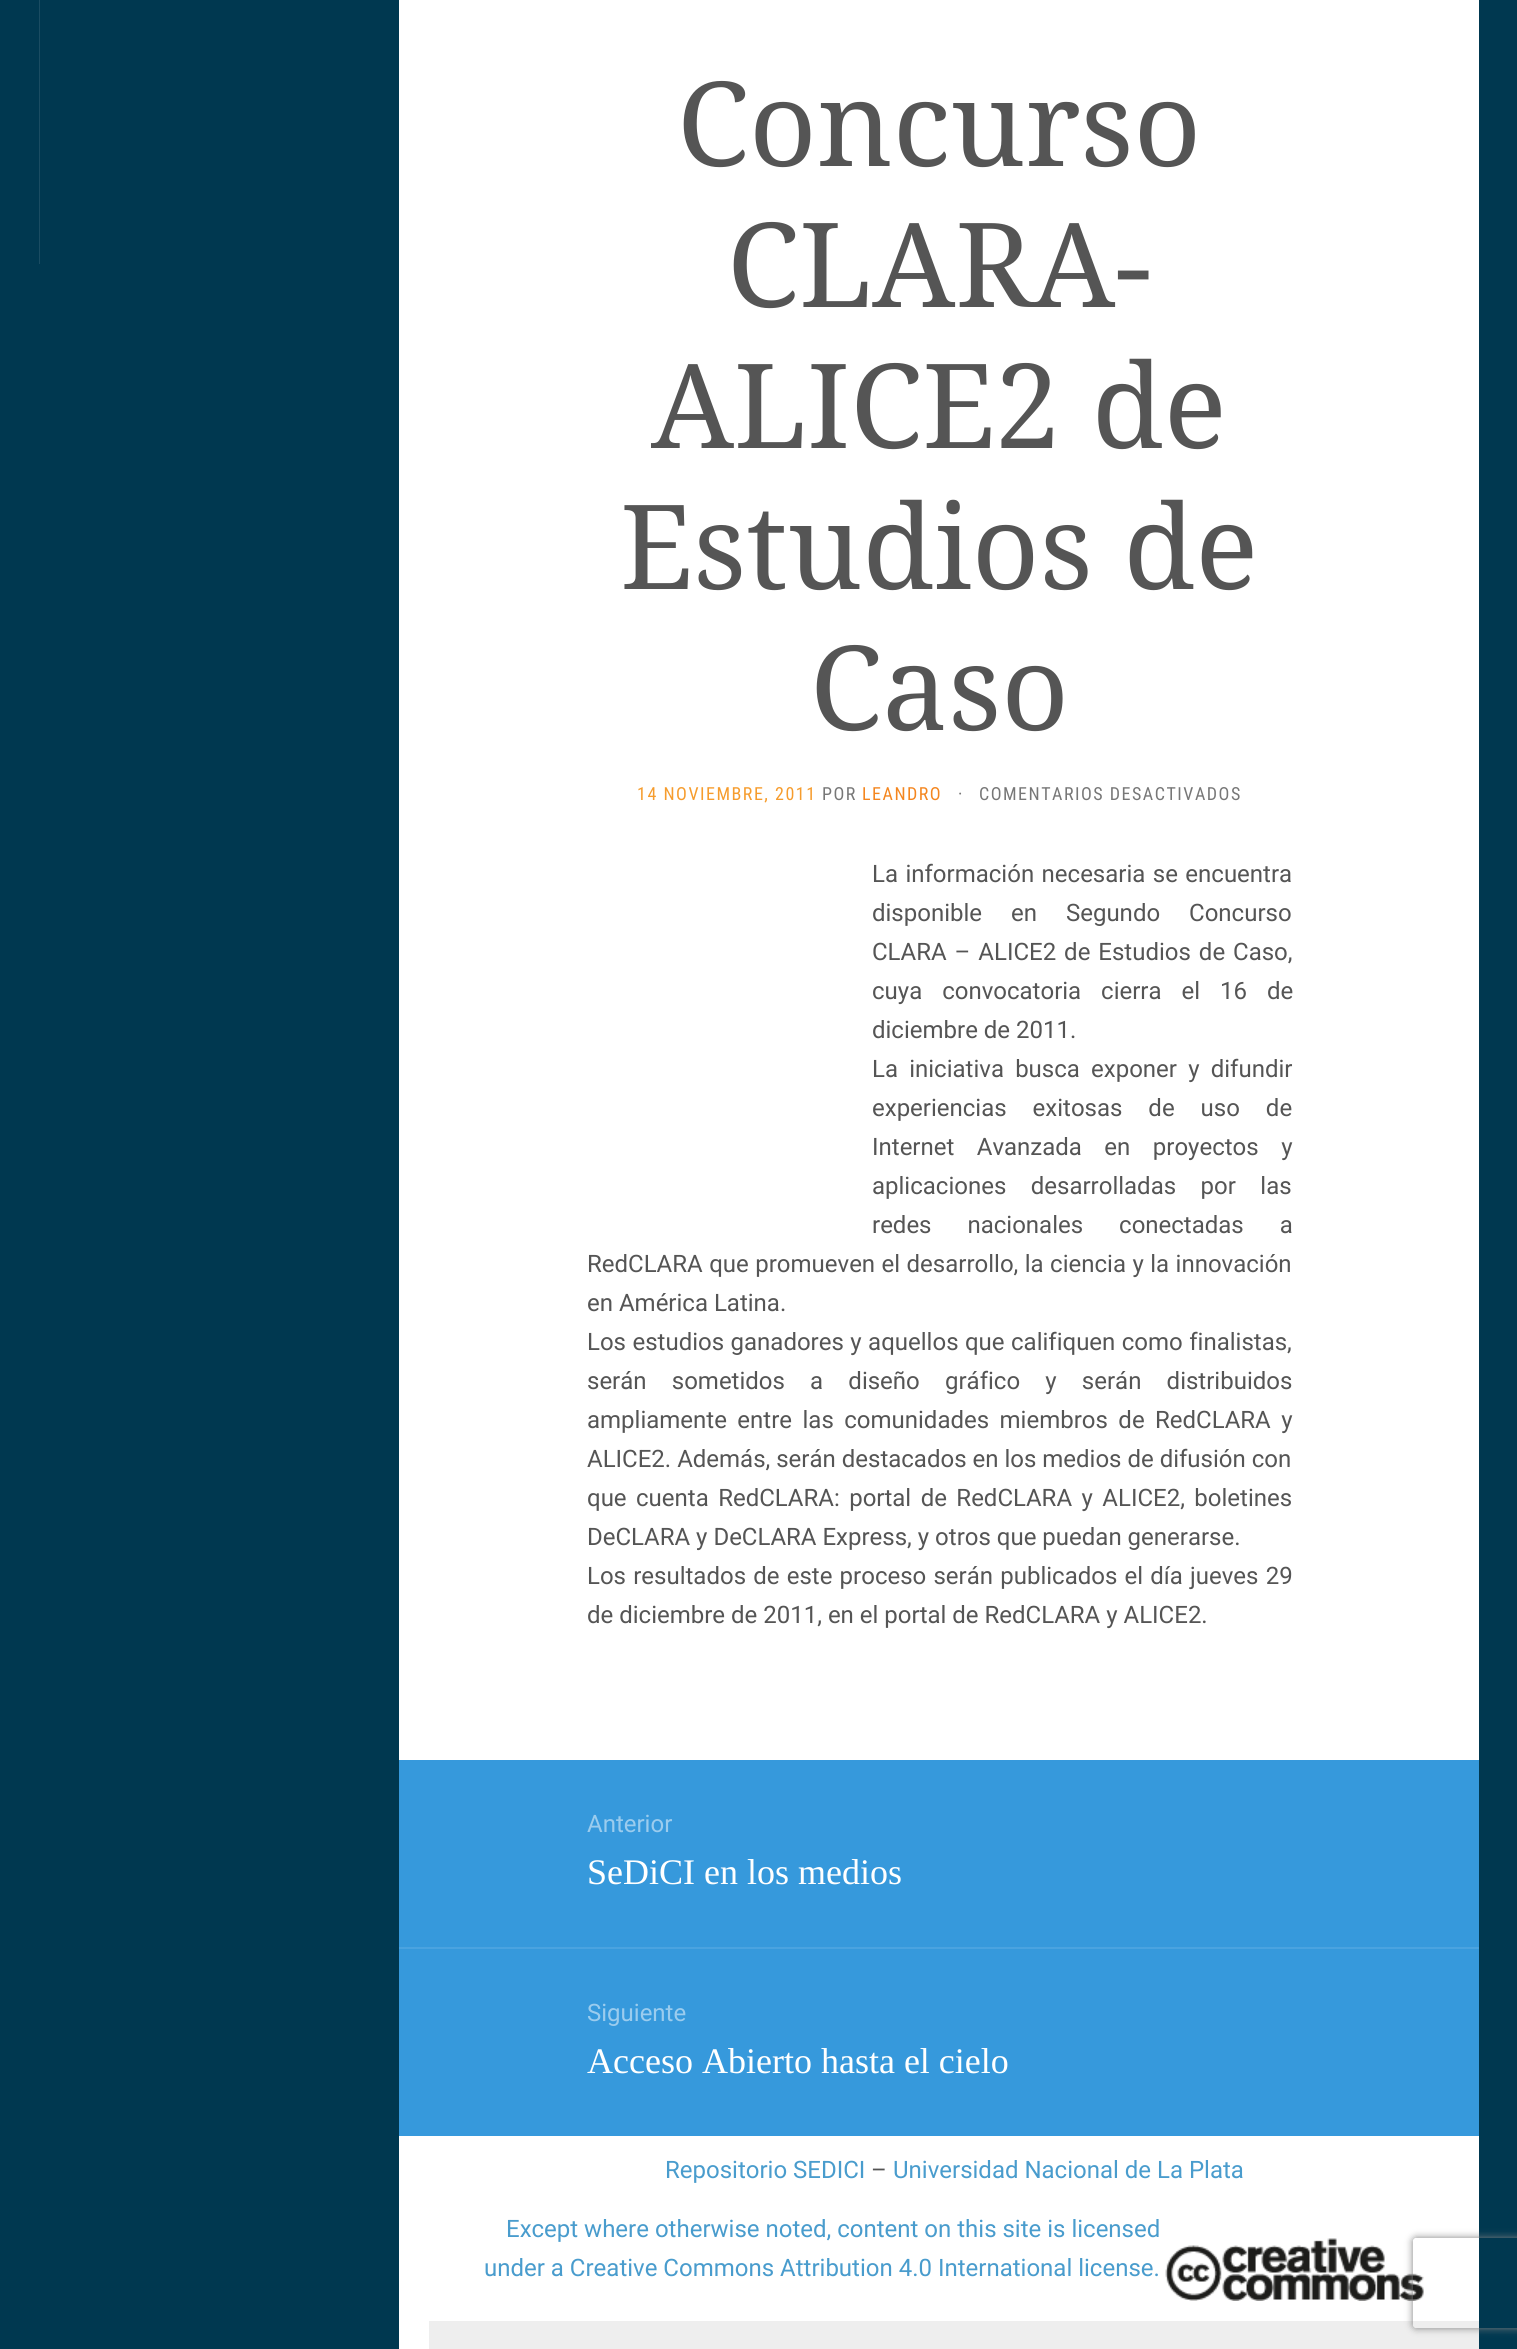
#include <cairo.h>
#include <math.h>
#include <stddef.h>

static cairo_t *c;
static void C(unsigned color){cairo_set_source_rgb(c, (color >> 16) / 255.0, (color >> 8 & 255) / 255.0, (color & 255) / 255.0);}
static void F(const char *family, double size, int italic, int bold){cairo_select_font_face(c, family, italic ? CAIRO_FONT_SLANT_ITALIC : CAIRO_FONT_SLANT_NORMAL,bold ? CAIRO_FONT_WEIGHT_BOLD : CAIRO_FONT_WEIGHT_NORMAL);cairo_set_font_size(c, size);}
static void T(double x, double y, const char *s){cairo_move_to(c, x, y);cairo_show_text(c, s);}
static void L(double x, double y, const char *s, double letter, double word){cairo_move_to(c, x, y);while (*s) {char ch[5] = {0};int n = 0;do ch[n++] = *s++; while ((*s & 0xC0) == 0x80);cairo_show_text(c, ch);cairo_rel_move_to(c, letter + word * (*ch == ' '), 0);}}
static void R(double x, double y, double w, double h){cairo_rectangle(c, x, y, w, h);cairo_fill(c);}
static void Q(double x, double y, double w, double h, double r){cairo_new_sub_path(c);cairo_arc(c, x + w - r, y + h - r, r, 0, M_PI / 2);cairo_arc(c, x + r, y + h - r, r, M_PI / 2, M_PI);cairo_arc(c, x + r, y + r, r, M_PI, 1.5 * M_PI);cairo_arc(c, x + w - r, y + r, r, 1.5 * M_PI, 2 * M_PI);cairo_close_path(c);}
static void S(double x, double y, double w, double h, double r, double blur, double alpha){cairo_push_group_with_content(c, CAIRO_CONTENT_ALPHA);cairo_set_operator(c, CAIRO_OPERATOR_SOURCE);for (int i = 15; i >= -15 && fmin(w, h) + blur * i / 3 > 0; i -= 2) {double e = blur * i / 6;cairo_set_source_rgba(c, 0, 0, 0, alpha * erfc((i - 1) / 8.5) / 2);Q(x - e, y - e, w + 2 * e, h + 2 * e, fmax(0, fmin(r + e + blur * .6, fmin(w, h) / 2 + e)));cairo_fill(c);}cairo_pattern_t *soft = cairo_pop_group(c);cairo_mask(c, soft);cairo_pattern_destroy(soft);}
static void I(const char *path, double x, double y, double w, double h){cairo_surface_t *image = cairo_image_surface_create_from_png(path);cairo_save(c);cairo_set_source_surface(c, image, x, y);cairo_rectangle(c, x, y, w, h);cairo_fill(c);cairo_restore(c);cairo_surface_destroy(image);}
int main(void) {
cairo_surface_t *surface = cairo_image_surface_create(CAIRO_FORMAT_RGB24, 1517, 2349);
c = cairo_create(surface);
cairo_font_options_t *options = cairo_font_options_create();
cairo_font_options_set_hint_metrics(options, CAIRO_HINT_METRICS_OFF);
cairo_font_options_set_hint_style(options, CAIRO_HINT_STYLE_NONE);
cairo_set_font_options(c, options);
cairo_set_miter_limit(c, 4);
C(0x003850);
cairo_paint(c);
C(0x1a4c62);
R(39,0,1,264);
C(0xffffff);
R(399,0,1080,2349);
F("Droid Serif",117.5,0,0);
C(0x555555);
T(677,166,"Concurso");
T(727,307,"CLARA-");
T(651,448,"ALICE2 de");
T(620,589,"Estudios de");
T(810,730,"Caso");
F("Roboto Condensed",18,0,0);
C(0xf69c2d);
L(637,800,"14 NOVIEMBRE, 2011",1.5,0);
C(0x777777);
L(822,800,"POR",1.5,0);
C(0xf4861f);
L(862,800,"LEANDRO",1.5,0);
C(0x777777);
L(958,800,"·",1.5,0);
L(979,800,"COMENTARIOS DESACTIVADOS",1.5,0);
F("Roboto",24,0,0);
C(0x555555);
L(872,882,"La información necesaria se encuentra",0,1.5);
L(872,921,"disponible en Segundo Concurso",0,23);
L(872,960,"CLARA – ALICE2 de Estudios de Caso,",0,2);
L(872,999,"cuya convocatoria cierra el 16 de",0,14);
T(872,1038,"diciembre de 2011.");
L(872,1077,"La iniciativa busca exponer y difundir",0,5.25);
L(872,1116,"experiencias exitosas de uso de",0,20);
L(872,1155,"Internet Avanzada en proyectos y",0,16.5);
L(872,1194,"aplicaciones desarrolladas por las",0,18.5);
L(872,1233,"redes nacionales conectadas a",0,30);
L(587,1272,"RedCLARA que promueven el desarrollo, la ciencia y la innovación",0,.5);
T(587,1311,"en América Latina.");
L(587,1350,"Los estudios ganadores y aquellos que califiquen como finalistas,",0,.5);
L(587,1389,"serán sometidos a diseño gráfico y serán distribuidos",0,19.25);
L(587,1428,"ampliamente entre las comunidades miembros de RedCLARA y",0,4.5);
T(587,1467,"ALICE2. Además, serán destacados en los medios de difusión con");
L(587,1506,"que cuenta RedCLARA: portal de RedCLARA y ALICE2, boletines",0,3.5);
T(587,1545,"DeCLARA y DeCLARA Express, y otros que puedan generarse.");
L(587,1584,"Los resultados de este proceso serán publicados el día jueves 29",0,1.25);
T(587,1623,"de diciembre de 2011, en el portal de RedCLARA y ALICE2.");
C(0x3699dc);
R(399,1760,1080,376);
C(0x4aa3e0);
R(399,1947,1080,2);
C(0x9bccee);
T(587,1832,"Anterior");
F("Liberation Serif",36,0,0);
C(0xffffff);
T(587,1884,"SeDiCI en los medios");
F("Roboto",24,0,0);
C(0x9bccee);
T(587,2021,"Siguiente");
F("Liberation Serif",36,0,0);
C(0xffffff);
T(587,2073,"Acceso Abierto hasta el cielo");
F("Roboto",24,0,0);
C(0x499ccd);
T(665,2178,"Repositorio SEDICI");
C(0x555555);
T(871,2178,"–");
C(0x499ccd);
T(893,2178,"Universidad Nacional de La Plata");
T(506,2237,"Except where otherwise noted, content on this site is licensed");
T(484,2276,"under a Creative Commons Attribution 4.0 International license.");
I("1.png",1165,2238,259,63);
C(0xeeeeee);
R(429,2321,1050,28);
cairo_save(c);
cairo_set_fill_rule(c,CAIRO_FILL_RULE_EVEN_ODD);
cairo_new_path(c);
cairo_move_to(c,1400,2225);
cairo_line_to(c,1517,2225);
cairo_line_to(c,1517,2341);
cairo_line_to(c,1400,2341);
cairo_close_path(c);
cairo_move_to(c,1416,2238);
cairo_line_to(c,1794,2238);
cairo_curve_to(c,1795.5,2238,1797,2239.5,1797,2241);
cairo_line_to(c,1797,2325);
cairo_curve_to(c,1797,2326.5,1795.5,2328,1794,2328);
cairo_line_to(c,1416,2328);
cairo_curve_to(c,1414.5,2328,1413,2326.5,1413,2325);
cairo_line_to(c,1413,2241);
cairo_curve_to(c,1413,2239.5,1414.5,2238,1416,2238);
cairo_close_path(c);
cairo_clip(c);
C(0x808080);
S(1413,2238,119,90,3,4,1);
cairo_restore(c);
cairo_surface_write_to_png(surface, "o.png");
cairo_font_options_destroy(options);
cairo_destroy(c);
cairo_surface_destroy(surface);
return 0;
}
